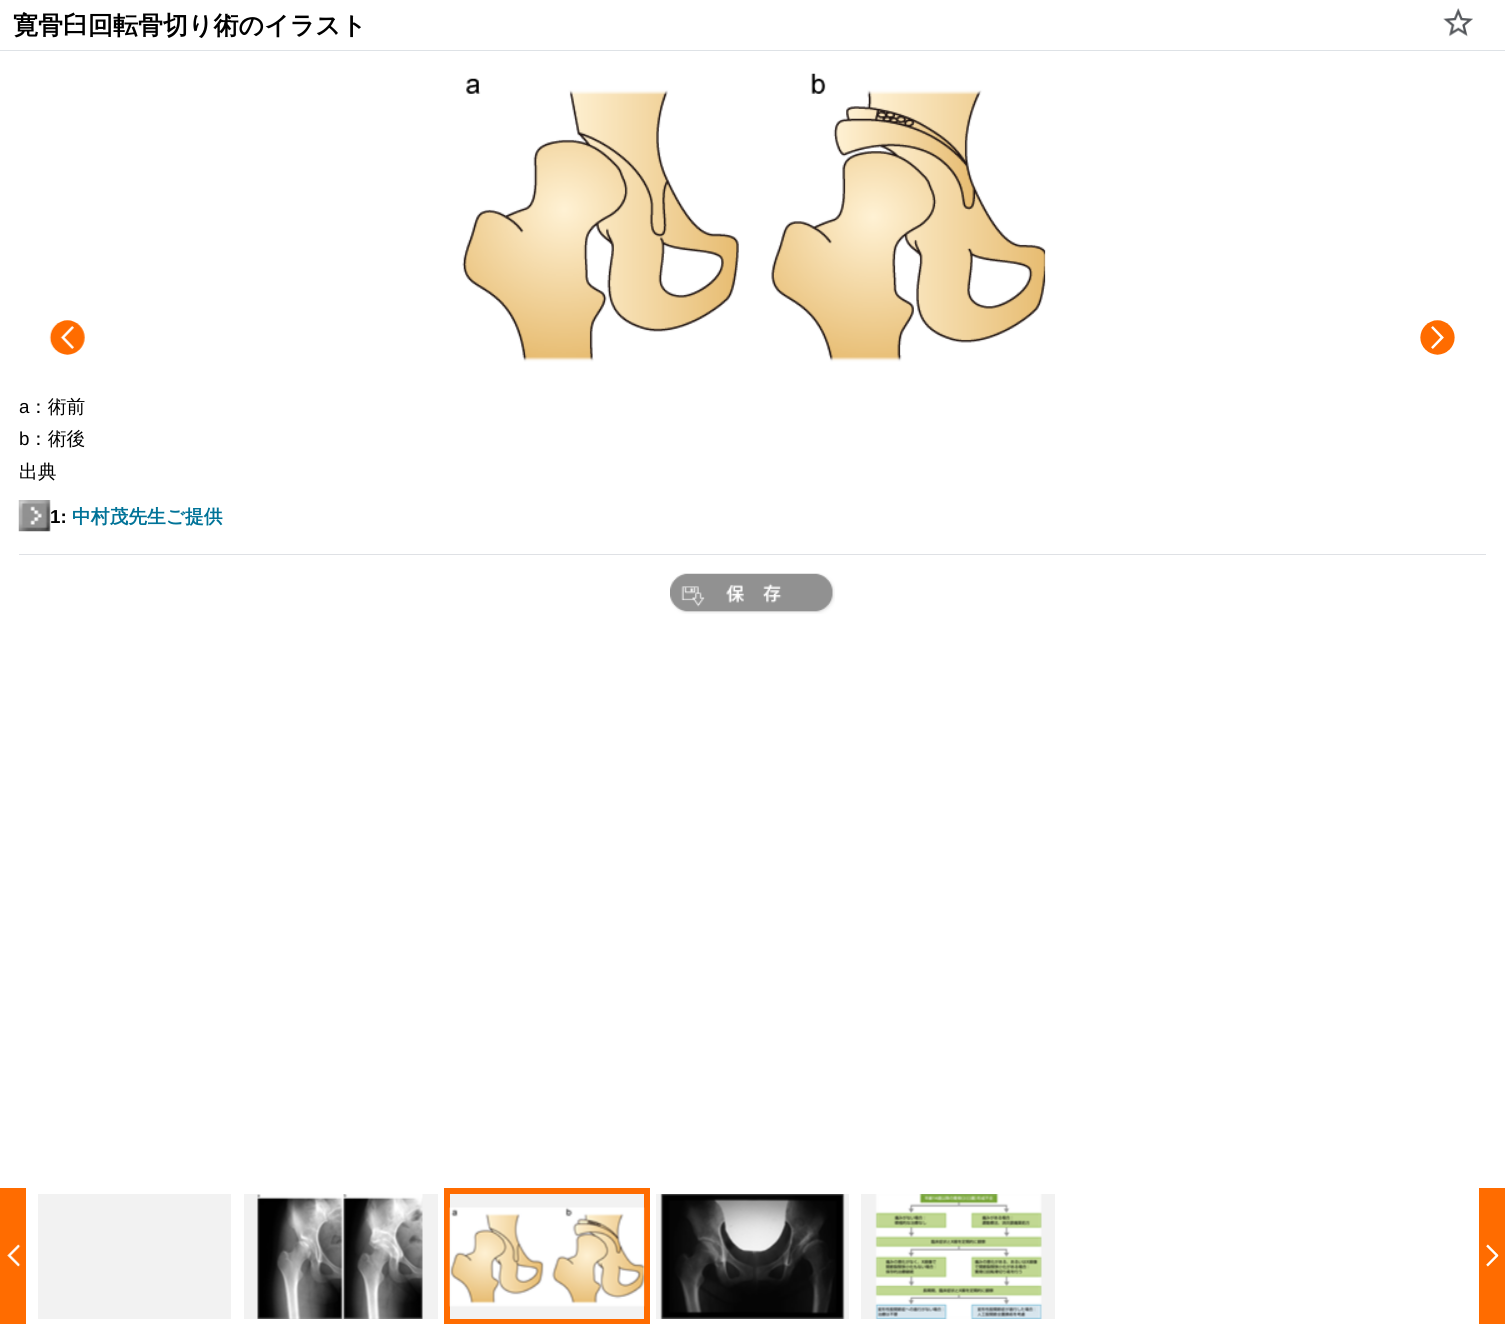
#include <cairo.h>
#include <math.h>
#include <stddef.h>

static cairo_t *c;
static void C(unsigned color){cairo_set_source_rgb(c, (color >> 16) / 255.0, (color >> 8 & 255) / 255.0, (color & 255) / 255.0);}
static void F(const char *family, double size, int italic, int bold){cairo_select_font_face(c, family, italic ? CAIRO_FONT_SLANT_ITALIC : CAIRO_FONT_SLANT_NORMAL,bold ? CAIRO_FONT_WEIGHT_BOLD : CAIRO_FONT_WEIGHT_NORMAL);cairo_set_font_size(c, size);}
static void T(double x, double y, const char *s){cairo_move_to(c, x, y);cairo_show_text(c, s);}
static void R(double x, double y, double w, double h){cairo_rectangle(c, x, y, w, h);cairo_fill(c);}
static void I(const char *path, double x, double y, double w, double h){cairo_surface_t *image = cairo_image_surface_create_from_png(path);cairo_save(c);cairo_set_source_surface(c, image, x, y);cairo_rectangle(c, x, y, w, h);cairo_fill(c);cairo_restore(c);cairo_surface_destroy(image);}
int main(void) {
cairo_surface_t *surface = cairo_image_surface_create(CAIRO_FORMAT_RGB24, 1505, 1324);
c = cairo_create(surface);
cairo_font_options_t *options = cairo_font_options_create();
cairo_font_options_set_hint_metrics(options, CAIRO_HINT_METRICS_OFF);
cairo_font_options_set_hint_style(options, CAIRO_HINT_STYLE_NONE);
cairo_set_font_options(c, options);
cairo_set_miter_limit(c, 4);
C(0xffffff);
cairo_paint(c);
C(0xdee2e6);
R(0,50,1505,1);
F("WenQuanYi Zen Hei",25,0,1);
C(0x000000);
T(13,34,"寛骨臼回転骨切り術のイラスト");
I("1.png",1443,8,30,29);
I("2.png",462,73,584,289);
I("3.png",49,320,36,35);
I("4.png",1420,320,35,35);
F("Liberation Sans",18.75,0,0);
T(19,413,"a");
F("WenQuanYi Zen Hei Medium",18.75,0,0);
T(29,413,"：術前");
F("Liberation Sans",18.75,0,0);
T(19,445,"b");
F("WenQuanYi Zen Hei Medium",18.75,0,0);
T(29,445,"：術後");
T(19,478,"出典");
C(0xdfe1e5);
R(19,554,1467,1);
I("5.png",18,500,33,32);
F("Liberation Sans",18.75,0,1);
C(0x000000);
T(50,523,"1:");
F("WenQuanYi Zen Hei",18.75,0,1);
C(0x007398);
T(72,523,"中村茂先生ご提供");
I("6.png",670,573,165,41);
C(0xff6c00);
R(0,1188,26,136);
I("7.png",7,1244,14,23);
C(0xf2f2f2);
R(38,1194,193,125);
R(244,1194,194,125);
I("8.png",257,1194,166,125);
cairo_rectangle(c,447,1191,200,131);
C(0xff6c00);
cairo_set_line_width(c,6);
cairo_stroke(c);
C(0xf2f2f2);
R(450,1194,194,125);
I("9.png",449,1207,196,100);
R(656,1194,193,125);
I("10.png",660,1194,185,125);
R(861,1194,194,125);
I("11.png",875,1194,167,125);
C(0xff6c00);
R(1479,1188,26,136);
I("12.png",1486,1244,13,23);
cairo_surface_write_to_png(surface, "o.png");
cairo_font_options_destroy(options);
cairo_destroy(c);
cairo_surface_destroy(surface);
return 0;
}
